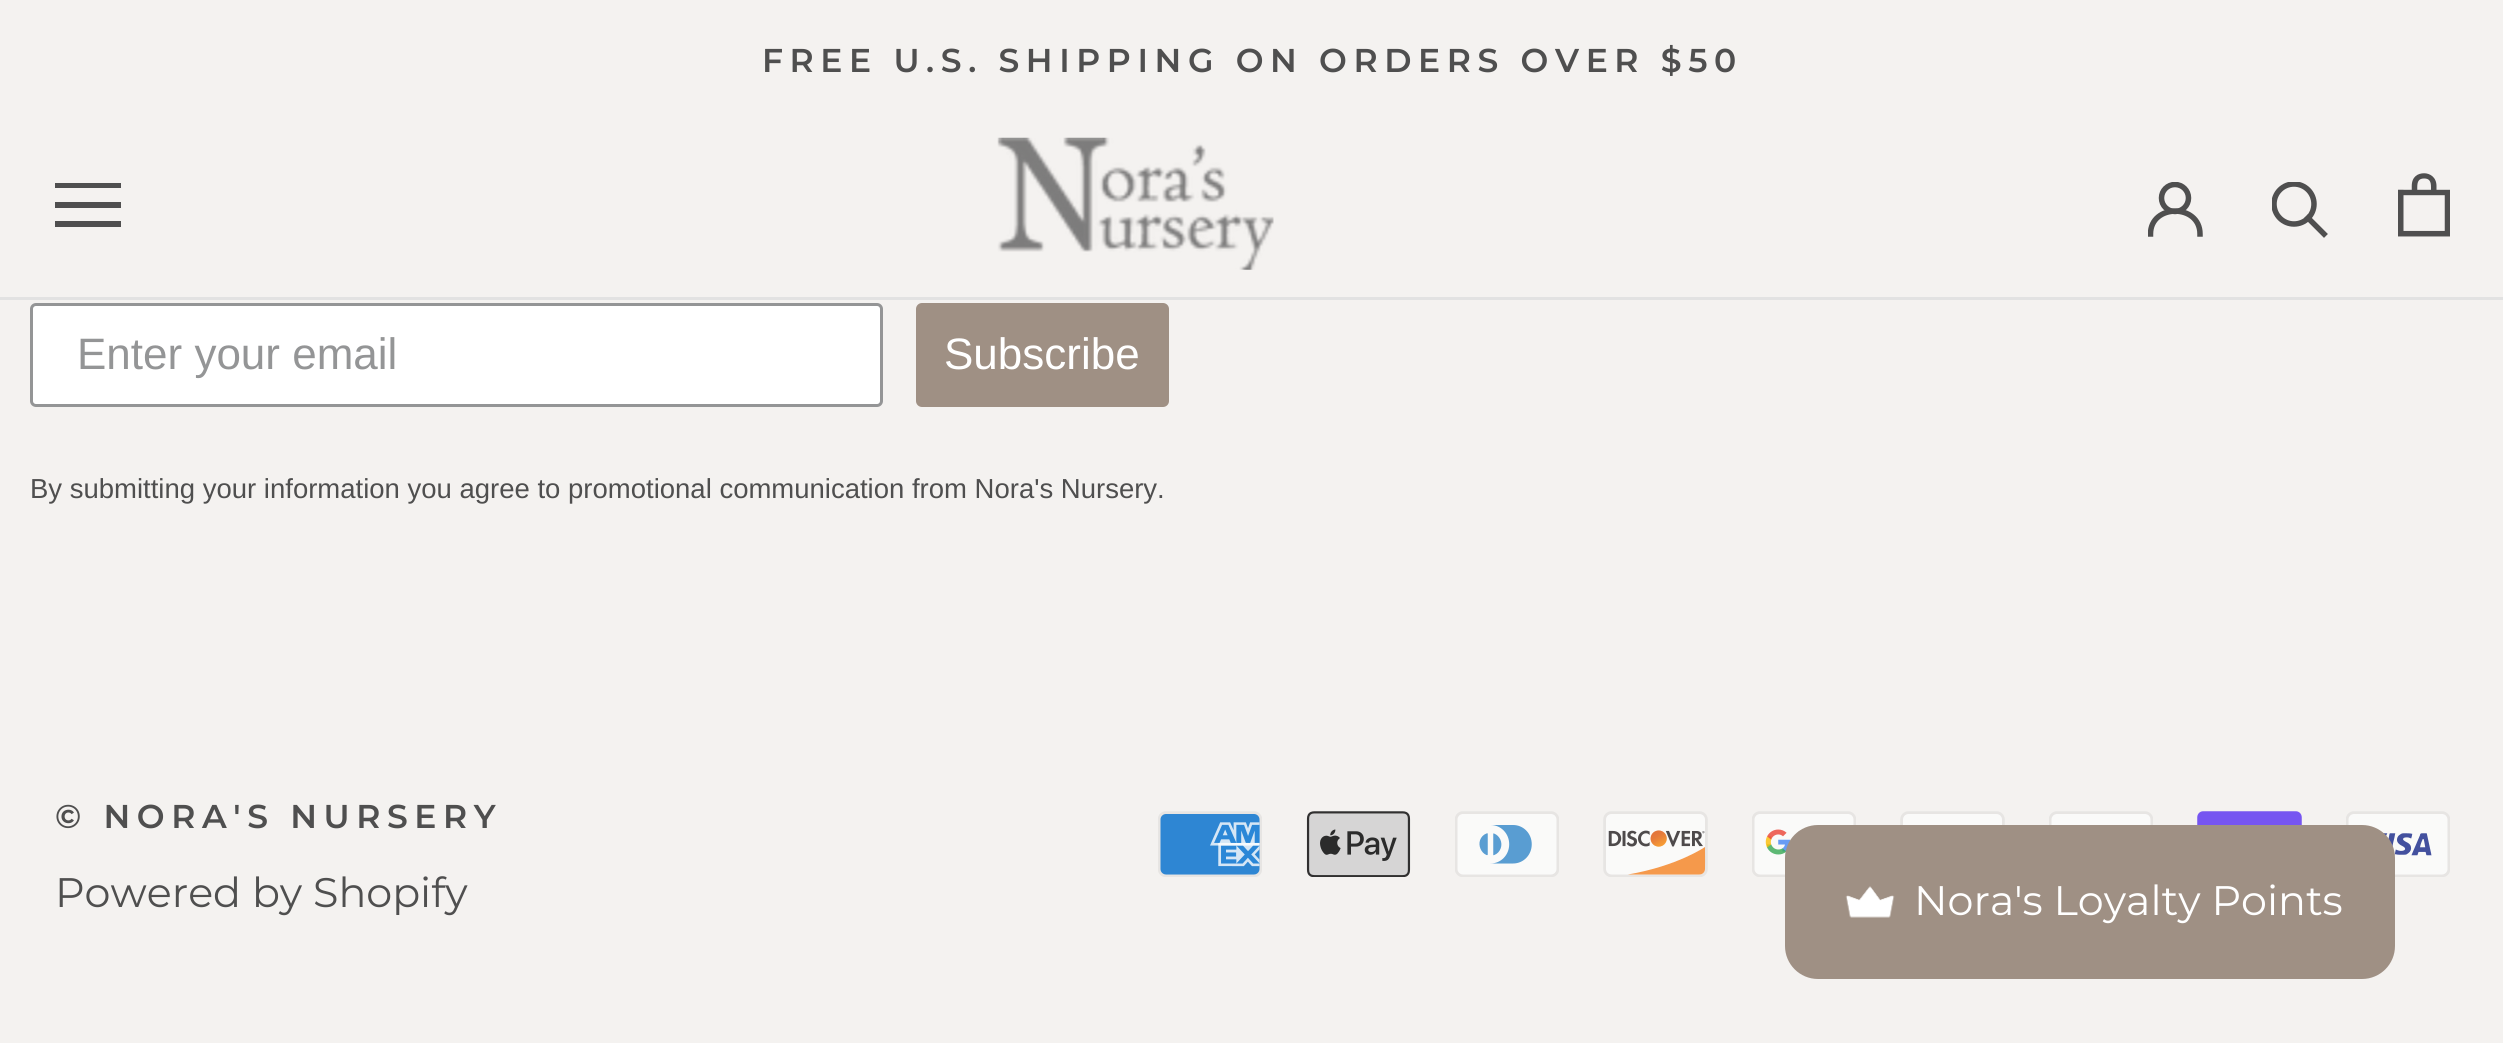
#include <cairo.h>
#include <math.h>
#include <stddef.h>

static cairo_t *c;
static void C(unsigned color){cairo_set_source_rgb(c, (color >> 16) / 255.0, (color >> 8 & 255) / 255.0, (color & 255) / 255.0);}
static void F(const char *family, double size, int italic, int bold){cairo_select_font_face(c, family, italic ? CAIRO_FONT_SLANT_ITALIC : CAIRO_FONT_SLANT_NORMAL,bold ? CAIRO_FONT_WEIGHT_BOLD : CAIRO_FONT_WEIGHT_NORMAL);cairo_set_font_size(c, size);}
static void T(double x, double y, const char *s){cairo_move_to(c, x, y);cairo_show_text(c, s);}
static void L(double x, double y, const char *s, double letter, double word){cairo_move_to(c, x, y);while (*s) {char ch[5] = {0};int n = 0;do ch[n++] = *s++; while ((*s & 0xC0) == 0x80);cairo_show_text(c, ch);cairo_rel_move_to(c, letter + word * (*ch == ' '), 0);}}
static void R(double x, double y, double w, double h){cairo_rectangle(c, x, y, w, h);cairo_fill(c);}
static void Q(double x, double y, double w, double h, double r){cairo_new_sub_path(c);cairo_arc(c, x + w - r, y + h - r, r, 0, M_PI / 2);cairo_arc(c, x + r, y + h - r, r, M_PI / 2, M_PI);cairo_arc(c, x + r, y + r, r, M_PI, 1.5 * M_PI);cairo_arc(c, x + w - r, y + r, r, 1.5 * M_PI, 2 * M_PI);cairo_close_path(c);}
static void I(const char *path, double x, double y, double w, double h){cairo_surface_t *image = cairo_image_surface_create_from_png(path);cairo_save(c);cairo_set_source_surface(c, image, x, y);cairo_rectangle(c, x, y, w, h);cairo_fill(c);cairo_restore(c);cairo_surface_destroy(image);}
int main(void) {
cairo_surface_t *surface = cairo_image_surface_create(CAIRO_FORMAT_RGB24, 2503, 1043);
c = cairo_create(surface);
cairo_font_options_t *options = cairo_font_options_create();
cairo_font_options_set_hint_metrics(options, CAIRO_HINT_METRICS_OFF);
cairo_font_options_set_hint_style(options, CAIRO_HINT_STYLE_NONE);
cairo_set_font_options(c, options);
cairo_set_miter_limit(c, 4);
C(0xf4f2f0);
cairo_paint(c);
F("Montserrat SemiBold",33,0,0);
C(0x4f4f4f);
L(762,72,"FREE U.S. SHIPPING ON ORDERS OVER $50",6.6,0);
C(0xe2e2e2);
R(0,297,2503,3);
C(0x4f4f4f);
cairo_new_path(c);
cairo_move_to(c,55,227);
cairo_line_to(c,55,221);
cairo_line_to(c,121,221);
cairo_line_to(c,121,227);
cairo_close_path(c);
cairo_move_to(c,55,202);
cairo_line_to(c,121,202);
cairo_line_to(c,121,208);
cairo_line_to(c,55,208);
cairo_close_path(c);
cairo_move_to(c,55,183);
cairo_line_to(c,121,183);
cairo_line_to(c,121,188);
cairo_line_to(c,55,188);
cairo_close_path(c);
cairo_fill(c);
I("1.png",997,137,277,133);
cairo_save(c);
cairo_rectangle(c,2148,182,55,55);
cairo_clip(c);
cairo_new_path(c);
cairo_move_to(c,2150.5,234);
cairo_curve_to(c,2150.5,203.5,2200,203.5,2200,234);
cairo_set_line_width(c,5.5);
cairo_set_line_cap(c,CAIRO_LINE_CAP_SQUARE);
cairo_stroke(c);
cairo_arc(c,2175,198,13.5,0,2 * M_PI);
cairo_set_line_cap(c,CAIRO_LINE_CAP_BUTT);
cairo_stroke(c);
cairo_restore(c);
cairo_new_path(c);
cairo_move_to(c,2324,234);
cairo_line_to(c,2308,218);
cairo_set_line_width(c,5.5);
cairo_set_line_cap(c,CAIRO_LINE_CAP_SQUARE);
cairo_stroke(c);
cairo_save(c);
cairo_rectangle(c,2272,182,57,57);
cairo_clip(c);
cairo_arc(c,2294,204,20,0,2 * M_PI);
cairo_set_line_cap(c,CAIRO_LINE_CAP_BUTT);
cairo_stroke(c);
cairo_restore(c);
I("2.png",2398,173,52,64);
C(0xffffff);
Q(31.5,304.5,850,101,4.5);
cairo_fill_preserve(c);
C(0x949596);
cairo_set_line_width(c,3);
cairo_set_line_cap(c,CAIRO_LINE_CAP_BUTT);
cairo_stroke(c);
F("Liberation Sans",44,0,0);
T(77,369,"Enter your email");
C(0x9f9084);
Q(916,303,253,104,6);
cairo_fill(c);
C(0xffffff);
T(944,369,"Subscribe");
F("Liberation Sans",27.5,0,0);
C(0x4f4f4f);
T(30,498,"By submitting your information you agree to promotional communication from Nora's Nursery.");
F("Montserrat SemiBold",33,0,0);
L(55,828,"© NORA'S NURSERY",6.6,0);
F("Montserrat",41.25,0,0);
T(55,907,"Powered by Shopify");
I("3.png",1158,811,104,66);
I("4.png",1306,811,105,66);
I("5.png",1455,811,104,66);
I("6.png",1603,811,105,66);
I("7.png",1752,811,104,66);
I("8.png",1900,811,105,14);
I("9.png",2049,811,104,14);
I("10.png",2197,811,105,14);
I("11.png",2346,811,104,66);
C(0x9f9084);
Q(1785,825,610,154,33);
cairo_fill(c);
I("12.png",1845,886,50,32);
C(0xffffff);
T(1914,915,"Nora's Loyalty Points");
cairo_surface_write_to_png(surface, "o.png");
cairo_font_options_destroy(options);
cairo_destroy(c);
cairo_surface_destroy(surface);
return 0;
}
